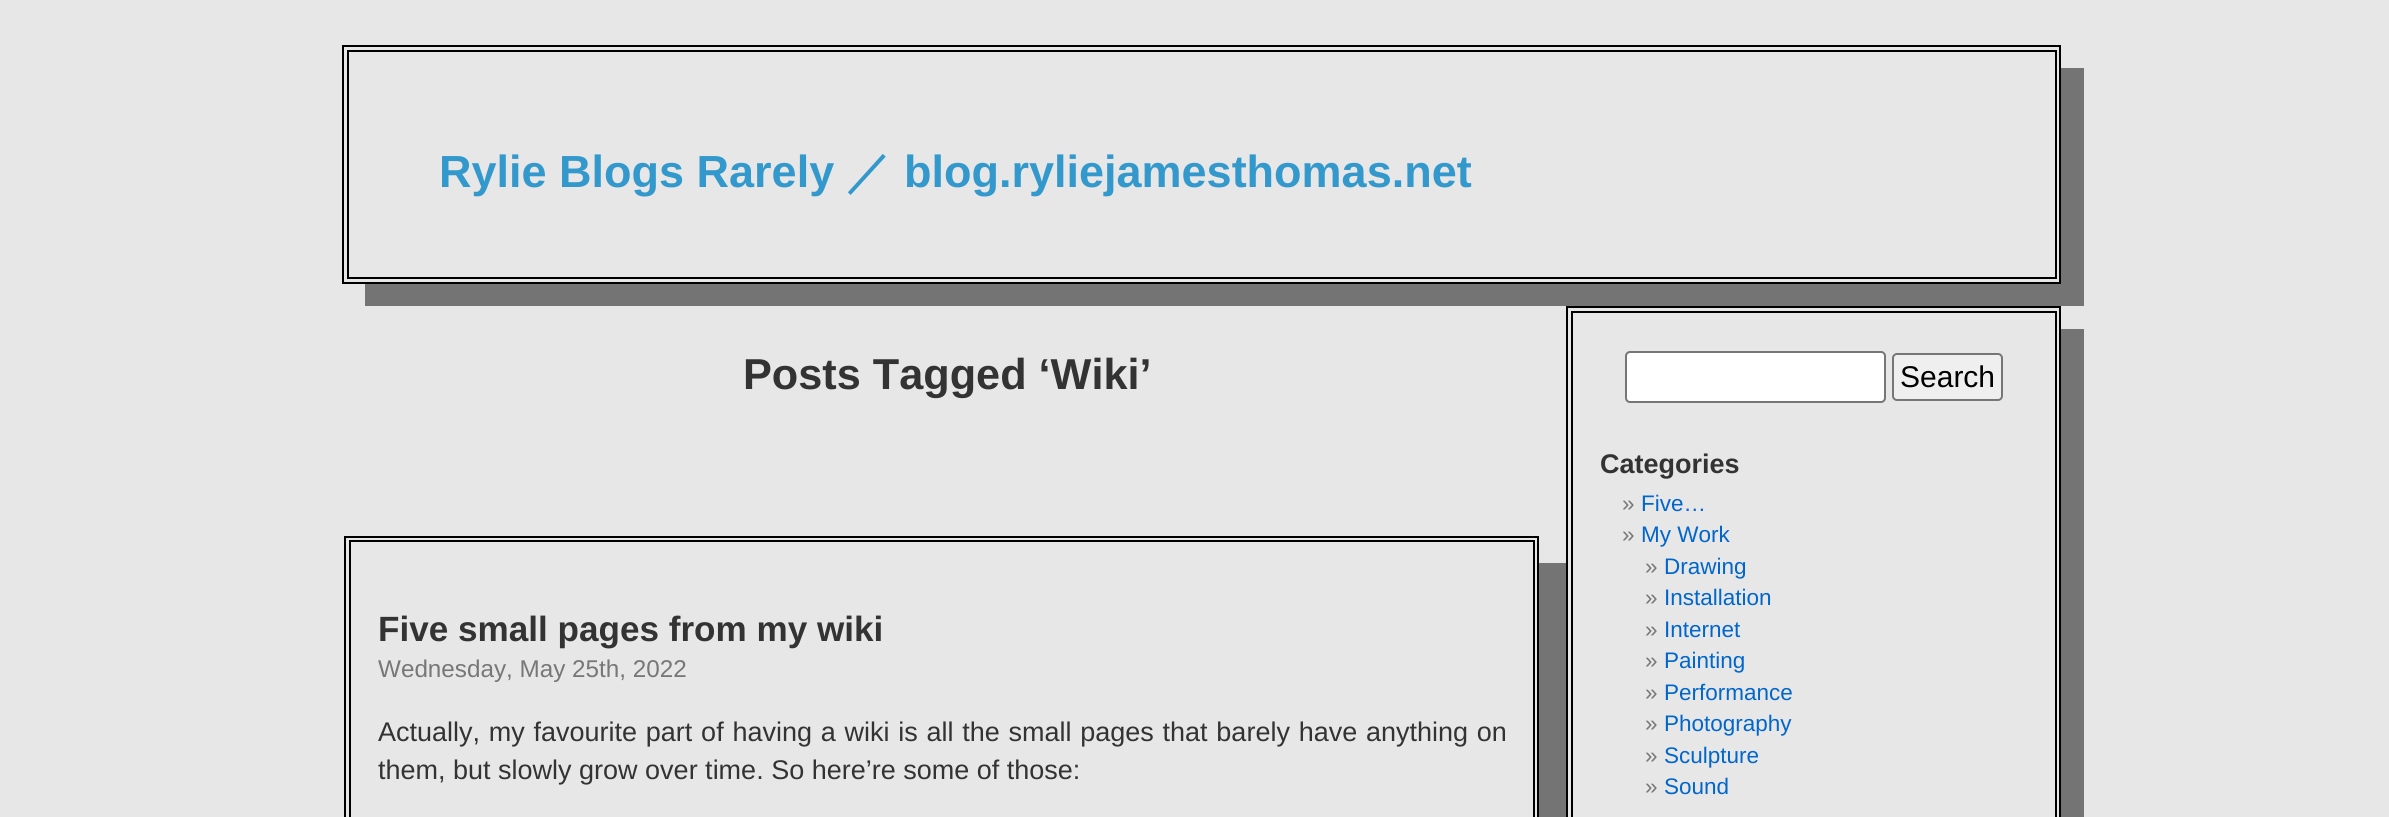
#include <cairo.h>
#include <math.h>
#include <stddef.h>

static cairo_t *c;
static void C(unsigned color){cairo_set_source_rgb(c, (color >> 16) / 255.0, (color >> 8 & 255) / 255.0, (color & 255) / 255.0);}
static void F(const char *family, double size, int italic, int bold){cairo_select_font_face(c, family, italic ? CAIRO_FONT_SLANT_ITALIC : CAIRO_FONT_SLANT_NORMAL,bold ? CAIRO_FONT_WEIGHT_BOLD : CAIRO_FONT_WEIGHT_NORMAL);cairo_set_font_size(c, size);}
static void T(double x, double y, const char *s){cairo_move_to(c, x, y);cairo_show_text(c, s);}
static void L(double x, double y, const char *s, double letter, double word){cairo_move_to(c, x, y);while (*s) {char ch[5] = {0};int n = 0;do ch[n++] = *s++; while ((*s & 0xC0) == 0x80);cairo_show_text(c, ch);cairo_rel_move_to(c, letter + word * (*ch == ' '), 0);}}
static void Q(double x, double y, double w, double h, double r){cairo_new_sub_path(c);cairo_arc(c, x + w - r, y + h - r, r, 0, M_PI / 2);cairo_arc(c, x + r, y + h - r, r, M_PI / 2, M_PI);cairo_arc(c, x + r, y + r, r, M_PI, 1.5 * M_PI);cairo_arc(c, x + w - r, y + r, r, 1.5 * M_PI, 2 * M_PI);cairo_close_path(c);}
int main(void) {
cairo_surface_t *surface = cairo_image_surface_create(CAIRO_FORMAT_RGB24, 2389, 817);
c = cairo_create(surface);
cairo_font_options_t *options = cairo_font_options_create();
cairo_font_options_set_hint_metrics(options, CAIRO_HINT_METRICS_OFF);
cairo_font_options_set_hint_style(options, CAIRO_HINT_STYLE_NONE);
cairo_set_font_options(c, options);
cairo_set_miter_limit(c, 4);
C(0xe7e7e7);
cairo_paint(c);
C(0x747474);
cairo_new_path(c);
cairo_move_to(c,365,284);
cairo_line_to(c,365,306);
cairo_line_to(c,2084,306);
cairo_line_to(c,2084,68);
cairo_line_to(c,2061,68);
cairo_line_to(c,2061,284);
cairo_close_path(c);
cairo_fill(c);
cairo_rectangle(c,343,46,1717,237);
C(0x000000);
cairo_stroke(c);
cairo_rectangle(c,348,51,1708,227);
cairo_stroke(c);
F("Liberation Sans",45,0,1);
C(0x3399cc);
T(439,187,"Rylie Blogs Rarely");
F("WenQuanYi Zen Hei",45,0,1);
T(846,187,"／");
F("Liberation Sans",45,0,1);
T(904,187,"blog.ryliejamesthomas.net");
F("Liberation Sans",43.25,0,1);
C(0x333333);
T(743,389,"Posts Tagged ‘Wiki’");
C(0x747474);
cairo_new_path(c);
cairo_move_to(c,371,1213);
cairo_line_to(c,371,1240);
cairo_line_to(c,1566,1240);
cairo_line_to(c,1566,563);
cairo_line_to(c,1539,563);
cairo_line_to(c,1539,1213);
cairo_close_path(c);
cairo_fill(c);
cairo_rectangle(c,345,537,1193,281);
C(0x000000);
cairo_stroke(c);
cairo_rectangle(c,350,541,1184,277);
cairo_stroke(c);
F("Liberation Sans",35.1,0,1);
C(0x333333);
T(378,641,"Five small pages from my wiki");
F("Liberation Sans",24.25,0,0);
C(0x777777);
T(378,677,"Wednesday, May 25th, 2022");
F("Liberation Sans",27,0,0);
C(0x333333);
L(378,741,"Actually, my favourite part of having a wiki is all the small pages that barely have anything on",0,1.25);
T(378,779,"them, but slowly grow over time. So here’re some of those:");
C(0x747474);
cairo_new_path(c);
cairo_move_to(c,1589,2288);
cairo_line_to(c,1589,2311);
cairo_line_to(c,2084,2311);
cairo_line_to(c,2084,329);
cairo_line_to(c,2061,329);
cairo_line_to(c,2061,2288);
cairo_close_path(c);
cairo_fill(c);
cairo_rectangle(c,1567,307,493,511);
C(0x000000);
cairo_stroke(c);
cairo_rectangle(c,1572,312,484,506);
cairo_stroke(c);
C(0xffffff);
Q(1626,352,259,50,4);
cairo_fill_preserve(c);
C(0x767676);
cairo_stroke(c);
C(0xefefef);
Q(1893,354,109,46,4);
cairo_fill_preserve(c);
C(0x767676);
cairo_stroke(c);
F("Liberation Sans",30,0,0);
C(0x000000);
T(1900,387,"Search");
F("Liberation Sans",27,0,1);
C(0x333333);
T(1600,473,"Categories");
F("Liberation Sans",22.5,0,0);
C(0x777777);
T(1622,511,"»");
C(0x0066cc);
T(1641,511,"Five…");
C(0x777777);
T(1622,542,"»");
C(0x0066cc);
T(1641,542,"My Work");
C(0x777777);
T(1645,574,"»");
C(0x0066cc);
T(1664,574,"Drawing");
C(0x777777);
T(1645,605,"»");
C(0x0066cc);
T(1664,605,"Installation");
C(0x777777);
T(1645,637,"»");
C(0x0066cc);
T(1664,637,"Internet");
C(0x777777);
T(1645,668,"»");
C(0x0066cc);
T(1664,668,"Painting");
C(0x777777);
T(1645,700,"»");
C(0x0066cc);
T(1664,700,"Performance");
C(0x777777);
T(1645,731,"»");
C(0x0066cc);
T(1664,731,"Photography");
C(0x777777);
T(1645,763,"»");
C(0x0066cc);
T(1664,763,"Sculpture");
C(0x777777);
T(1645,794,"»");
C(0x0066cc);
T(1664,794,"Sound");
cairo_surface_write_to_png(surface, "o.png");
cairo_font_options_destroy(options);
cairo_destroy(c);
cairo_surface_destroy(surface);
return 0;
}
